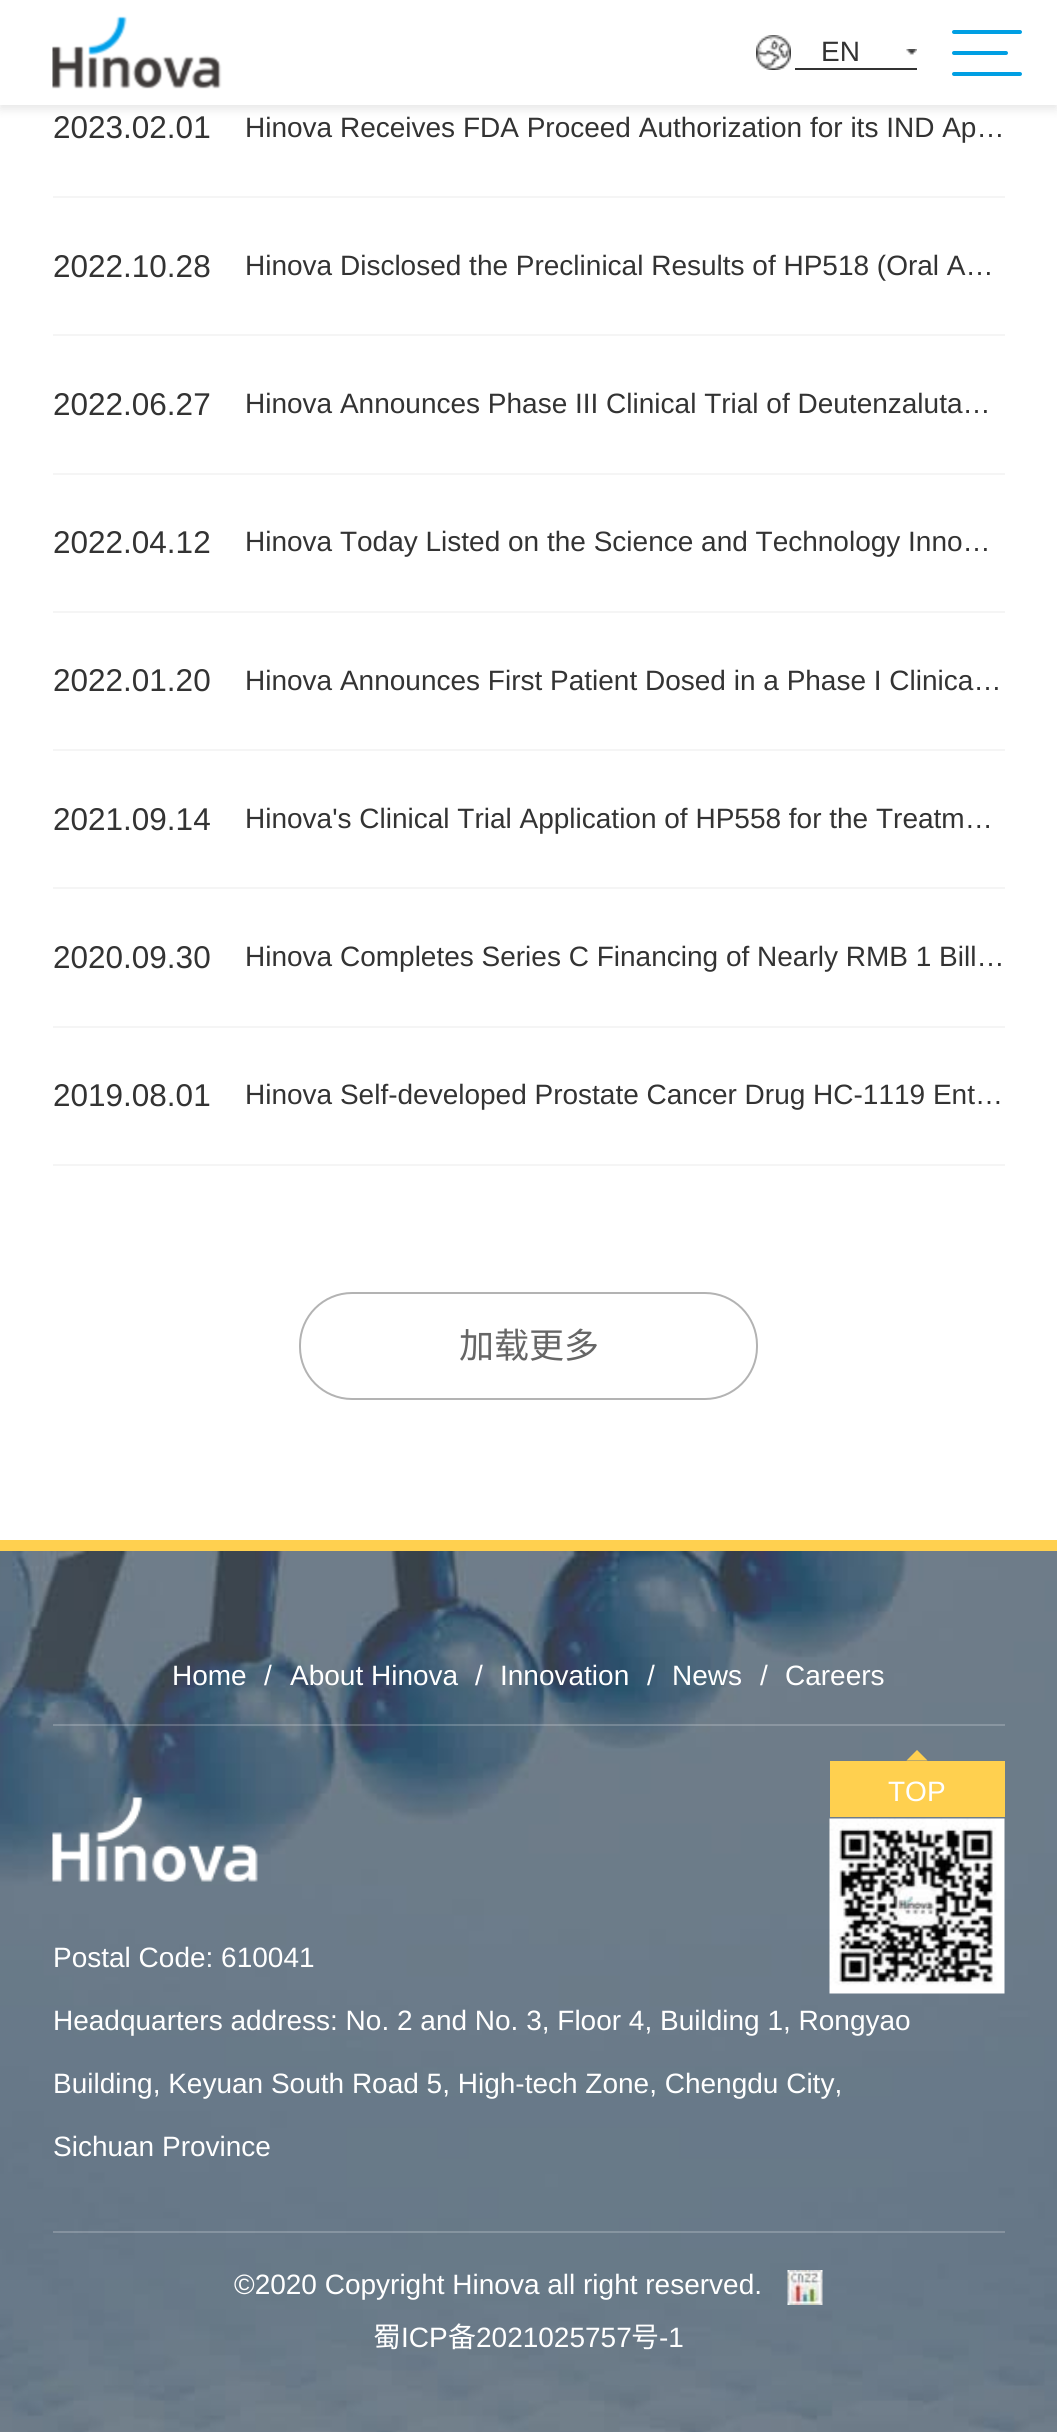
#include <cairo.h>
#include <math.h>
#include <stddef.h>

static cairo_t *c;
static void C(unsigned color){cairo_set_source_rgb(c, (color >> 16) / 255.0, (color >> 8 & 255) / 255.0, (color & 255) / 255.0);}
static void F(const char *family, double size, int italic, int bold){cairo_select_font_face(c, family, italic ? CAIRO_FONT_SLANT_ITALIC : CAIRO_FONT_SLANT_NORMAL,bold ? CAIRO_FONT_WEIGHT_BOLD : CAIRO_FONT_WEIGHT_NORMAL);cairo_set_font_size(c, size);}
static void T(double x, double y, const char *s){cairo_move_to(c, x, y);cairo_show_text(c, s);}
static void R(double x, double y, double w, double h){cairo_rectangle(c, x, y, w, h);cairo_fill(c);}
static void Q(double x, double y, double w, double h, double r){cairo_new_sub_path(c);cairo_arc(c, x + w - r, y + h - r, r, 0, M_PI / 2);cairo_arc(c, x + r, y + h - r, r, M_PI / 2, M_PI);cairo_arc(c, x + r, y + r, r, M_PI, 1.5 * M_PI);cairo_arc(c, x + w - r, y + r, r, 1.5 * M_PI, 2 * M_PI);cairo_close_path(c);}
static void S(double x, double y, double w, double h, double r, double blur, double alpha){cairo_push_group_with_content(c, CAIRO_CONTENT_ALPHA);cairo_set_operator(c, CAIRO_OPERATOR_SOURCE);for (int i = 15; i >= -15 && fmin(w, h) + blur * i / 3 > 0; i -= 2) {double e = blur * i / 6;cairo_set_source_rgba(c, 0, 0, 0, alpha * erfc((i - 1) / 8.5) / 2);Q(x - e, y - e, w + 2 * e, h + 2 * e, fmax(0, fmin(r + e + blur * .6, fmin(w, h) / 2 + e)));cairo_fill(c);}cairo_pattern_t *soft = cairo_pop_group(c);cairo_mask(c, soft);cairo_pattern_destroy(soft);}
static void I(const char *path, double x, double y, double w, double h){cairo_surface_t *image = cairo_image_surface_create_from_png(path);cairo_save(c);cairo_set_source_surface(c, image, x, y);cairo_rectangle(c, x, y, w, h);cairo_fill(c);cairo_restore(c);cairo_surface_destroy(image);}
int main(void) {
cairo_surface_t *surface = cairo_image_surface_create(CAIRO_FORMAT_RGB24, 1057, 2432);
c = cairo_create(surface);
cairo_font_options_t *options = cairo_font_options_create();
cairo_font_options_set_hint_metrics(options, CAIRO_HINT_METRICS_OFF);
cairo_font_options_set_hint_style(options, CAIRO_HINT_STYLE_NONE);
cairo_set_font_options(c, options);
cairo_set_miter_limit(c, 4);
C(0xffffff);
cairo_paint(c);
C(0x000000);
S(0,4,1057,105,0,5,.1);
C(0xffffff);
R(0,0,1057,105);
I("1.png",52,16,170,73);
I("2.png",756,35,35,35);
I("3.png",906,49,11,6);
F("Liberation Sans",28,0,0);
C(0x333333);
T(821,61,"EN");
R(795,68,122,2);
C(0x009fe3);
Q(952,30,70,4,2);
cairo_fill(c);
Q(952,51,56,4,2);
cairo_fill(c);
Q(952,72,70,4,2);
cairo_fill(c);
C(0xf5f5f5);
R(53,196,952,2);
F("Liberation Sans",31.5,0,0);
C(0x333333);
T(53,138,"2023.02.01");
F("Liberation Sans",28,0,0);
T(245,137,"Hinova Receives FDA Proceed Authorization for its IND Ap…");
C(0xf5f5f5);
R(53,334,952,2);
F("Liberation Sans",31.5,0,0);
C(0x333333);
T(53,277,"2022.10.28");
F("Liberation Sans",28,0,0);
T(245,275,"Hinova Disclosed the Preclinical Results of HP518 (Oral A…");
C(0xf5f5f5);
R(53,473,952,2);
F("Liberation Sans",31.5,0,0);
C(0x333333);
T(53,415,"2022.06.27");
F("Liberation Sans",28,0,0);
T(245,413,"Hinova Announces Phase III Clinical Trial of Deutenzaluta…");
C(0xf5f5f5);
R(53,611,952,2);
F("Liberation Sans",31.5,0,0);
C(0x333333);
T(53,553,"2022.04.12");
F("Liberation Sans",28,0,0);
T(245,551,"Hinova Today Listed on the Science and Technology Inno…");
C(0xf5f5f5);
R(53,749,952,2);
F("Liberation Sans",31.5,0,0);
C(0x333333);
T(53,691,"2022.01.20");
F("Liberation Sans",28,0,0);
T(245,690,"Hinova Announces First Patient Dosed in a Phase I Clinica…");
C(0xf5f5f5);
R(53,887,952,2);
F("Liberation Sans",31.5,0,0);
C(0x333333);
T(53,830,"2021.09.14");
F("Liberation Sans",28,0,0);
T(245,828,"Hinova's Clinical Trial Application of HP558 for the Treatm…");
C(0xf5f5f5);
R(53,1026,952,2);
F("Liberation Sans",31.5,0,0);
C(0x333333);
T(53,968,"2020.09.30");
F("Liberation Sans",28,0,0);
T(245,966,"Hinova Completes Series C Financing of Nearly RMB 1 Bill…");
C(0xf5f5f5);
R(53,1164,952,2);
F("Liberation Sans",31.5,0,0);
C(0x333333);
T(53,1106,"2019.08.01");
F("Liberation Sans",28,0,0);
T(245,1104,"Hinova Self-developed Prostate Cancer Drug HC-1119 Ent…");
Q(300,1293,457,106,52);
C(0xb3b3b3);
cairo_stroke(c);
F("Noto Sans CJK SC",35,0,0);
C(0x666666);
T(459,1358,"加载更多");
I("4.png",0,1551,1057,881);
C(0xffd04f);
R(0,1540,1057,11);
F("Liberation Sans",28,0,0);
C(0xffffff);
T(172,1685,"Home");
T(264,1685,"/");
T(290,1685,"About Hinova");
T(475,1685,"/");
T(500,1685,"Innovation");
T(647,1685,"/");
T(672,1685,"News");
T(760,1685,"/");
T(785,1685,"Careers");
cairo_set_source_rgba(c,1,1,1,0.2);
R(53,1724,952,2);
C(0xffd04f);
R(830,1761,175,56);
cairo_new_path(c);
cairo_move_to(c,927.5,1760.5);
cairo_line_to(c,906.5,1760.5);
cairo_line_to(c,917,1750);
cairo_close_path(c);
cairo_fill(c);
C(0xffffff);
T(888,1801,"TOP");
I("5.png",829,1818,176,176);
I("6.png",52,1797,206,85);
T(53,1967,"Postal Code: 610041");
T(53,2030,"Headquarters address: No. 2 and No. 3, Floor 4, Building 1, Rongyao");
T(53,2093,"Building, Keyuan South Road 5, High-tech Zone, Chengdu City,");
T(53,2156,"Sichuan Province");
cairo_set_source_rgba(c,1,1,1,0.2);
R(53,2231,952,2);
C(0xffffff);
T(234,2294,"©2020 Copyright Hinova all right reserved.");
I("7.png",787,2270,36,35);
F("Noto Sans CJK SC",28,0,0);
T(373,2347,"蜀");
F("Liberation Sans",28,0,0);
T(401,2347,"ICP");
F("Noto Sans CJK SC",28,0,0);
T(448,2347,"备");
F("Liberation Sans",28,0,0);
T(476,2347,"2021025757");
F("Noto Sans CJK SC",28,0,0);
T(631,2347,"号");
F("Liberation Sans",28,0,0);
T(659,2347,"-1");
cairo_surface_write_to_png(surface, "o.png");
cairo_font_options_destroy(options);
cairo_destroy(c);
cairo_surface_destroy(surface);
return 0;
}
